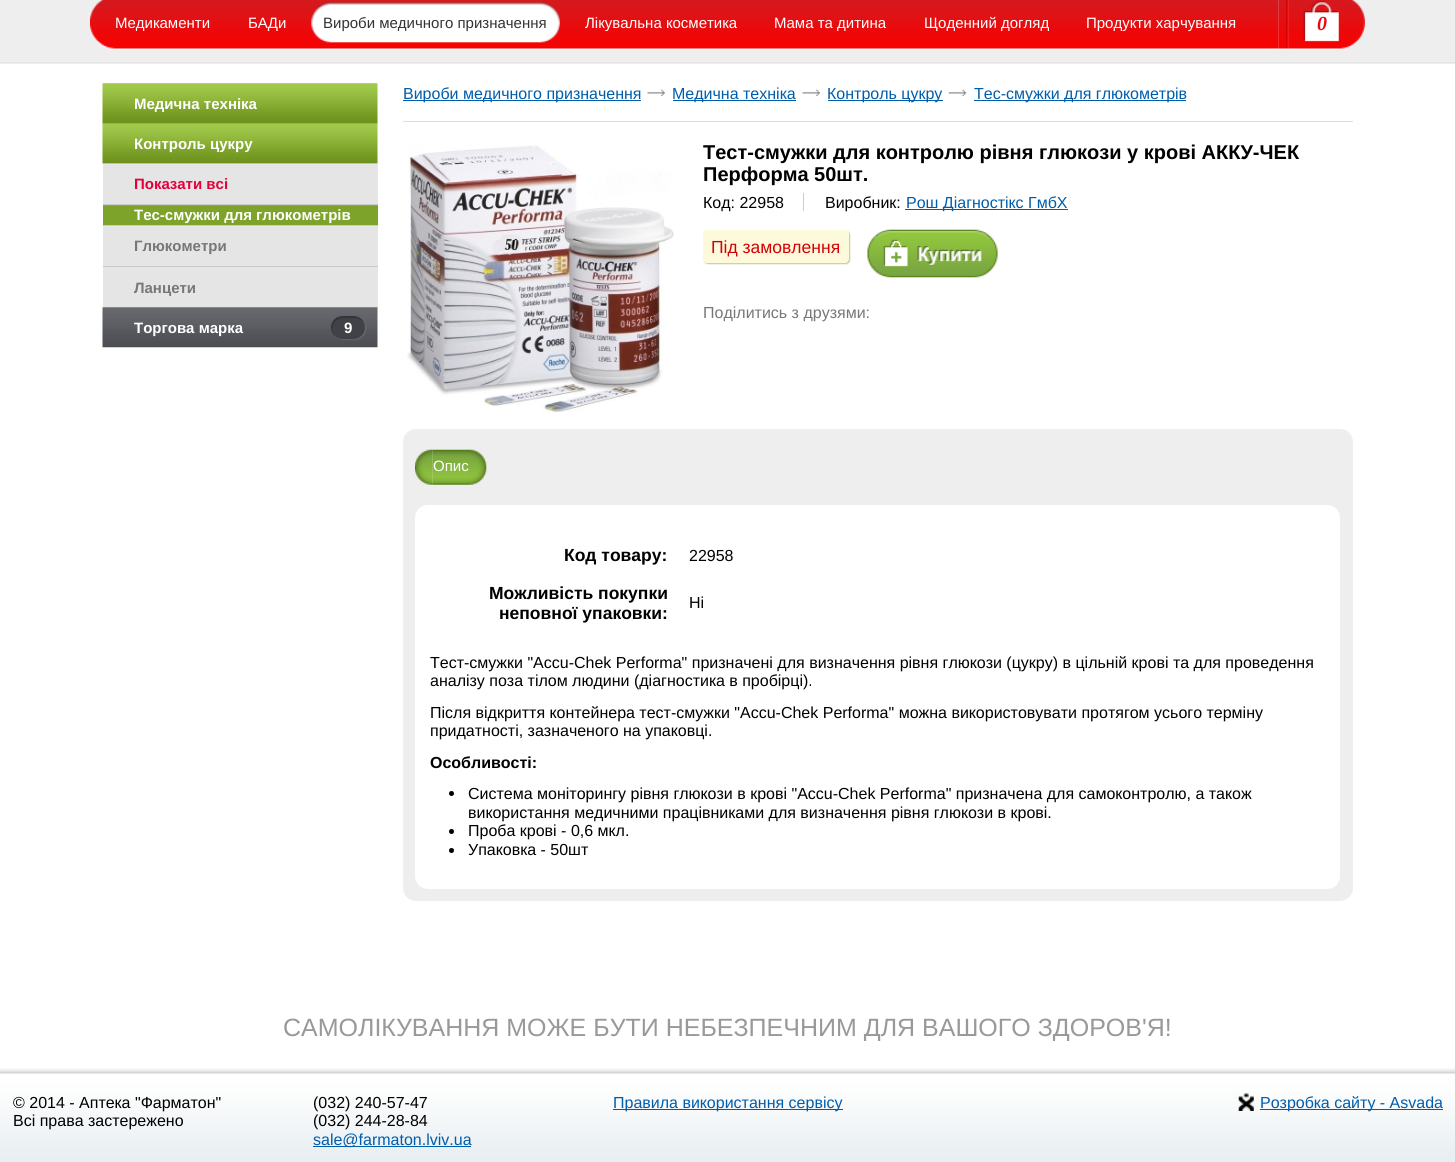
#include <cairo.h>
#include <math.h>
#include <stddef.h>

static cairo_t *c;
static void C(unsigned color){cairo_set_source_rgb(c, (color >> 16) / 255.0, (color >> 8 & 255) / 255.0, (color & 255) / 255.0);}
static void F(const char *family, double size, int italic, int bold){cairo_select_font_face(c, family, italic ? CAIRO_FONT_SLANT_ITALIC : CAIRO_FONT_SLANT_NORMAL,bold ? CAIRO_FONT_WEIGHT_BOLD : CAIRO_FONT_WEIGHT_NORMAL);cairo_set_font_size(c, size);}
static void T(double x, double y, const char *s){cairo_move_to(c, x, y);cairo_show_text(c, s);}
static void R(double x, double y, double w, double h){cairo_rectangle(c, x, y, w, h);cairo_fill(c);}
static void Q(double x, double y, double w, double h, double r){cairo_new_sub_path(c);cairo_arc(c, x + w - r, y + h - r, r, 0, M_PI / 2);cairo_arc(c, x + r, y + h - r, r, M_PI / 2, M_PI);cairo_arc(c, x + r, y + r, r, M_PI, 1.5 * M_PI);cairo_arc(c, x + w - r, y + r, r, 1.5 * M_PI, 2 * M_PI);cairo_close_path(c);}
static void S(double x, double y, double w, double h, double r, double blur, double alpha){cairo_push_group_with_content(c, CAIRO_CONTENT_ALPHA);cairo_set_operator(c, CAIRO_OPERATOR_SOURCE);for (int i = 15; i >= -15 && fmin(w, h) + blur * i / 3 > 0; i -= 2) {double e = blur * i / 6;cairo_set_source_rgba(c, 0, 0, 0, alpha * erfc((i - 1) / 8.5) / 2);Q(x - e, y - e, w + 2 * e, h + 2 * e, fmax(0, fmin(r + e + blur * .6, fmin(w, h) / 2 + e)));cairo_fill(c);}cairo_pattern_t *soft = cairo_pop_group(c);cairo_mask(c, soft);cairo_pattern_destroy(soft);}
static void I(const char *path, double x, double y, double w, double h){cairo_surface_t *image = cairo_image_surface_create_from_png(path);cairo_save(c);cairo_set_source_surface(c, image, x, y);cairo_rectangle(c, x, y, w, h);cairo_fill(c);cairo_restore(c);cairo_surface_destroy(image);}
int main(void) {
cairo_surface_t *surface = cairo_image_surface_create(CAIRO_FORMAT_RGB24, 1455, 1162);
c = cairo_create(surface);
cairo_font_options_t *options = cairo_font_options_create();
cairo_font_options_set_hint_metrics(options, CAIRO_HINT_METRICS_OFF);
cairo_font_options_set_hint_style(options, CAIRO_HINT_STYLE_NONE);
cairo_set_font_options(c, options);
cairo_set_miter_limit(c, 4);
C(0xffffff);
cairo_paint(c);
I("1.png",0,0,1455,64);
I("2.png",90,0,1189,50);
F("Liberation Sans",15,0,0);
C(0xffffff);
T(115,28,"Медикаменти");
T(248,28,"БАДи");
I("3.png",311,2,229,41);
I("4.png",540,2,20,41);
C(0x333333);
T(323,28,"Вироби медичного призначення");
C(0xffffff);
T(585,28,"Лікувальна косметика");
T(774,28,"Мама та дитина");
T(924,28,"Щоденний догляд");
T(1086,28,"Продукти харчування");
I("5.png",1278,0,87,50);
F("Liberation Serif",20,1,1);
C(0xe70d0f);
T(1317,30,"0");
I("6.png",102,83,276,41);
F("Liberation Sans",15,0,1);
C(0xffffff);
T(134,109,"Медична техніка");
I("7.png",102,123,276,41);
T(134,149,"Контроль цукру");
C(0xe5e5e5);
R(103,165,275,39);
C(0xe8e8e8);
R(103,164,275,1);
C(0xc9c9c9);
R(103,204,275,1);
C(0xe4003b);
T(134,189,"Показати всі");
C(0x7ea32b);
R(103,206,275,19);
C(0x8bac40);
R(103,205,275,1);
C(0xc9c9c9);
R(103,225,275,1);
C(0xffffff);
T(134,220,"Тес-смужки для глюкометрів");
C(0xe5e5e5);
R(103,227,275,41);
C(0xe8e8e8);
R(103,226,275,1);
C(0xc9c9c9);
R(103,266,275,1);
C(0x777777);
T(134,251,"Глюкометри");
C(0xe5e5e5);
R(103,269,275,39);
C(0xe8e8e8);
R(103,268,275,1);
C(0x777777);
T(134,293,"Ланцети");
I("8.png",102,307,276,41);
C(0xffffff);
T(134,333,"Торгова марка");
C(0xffffff);
S(333,318,33,22,11,.5,.1);
C(0x404247);
Q(331,316,34,23,11.5);
cairo_fill(c);
cairo_set_source_rgba(c,0,0,0,0.2);
cairo_new_path(c);
cairo_move_to(c,344,318);
cairo_line_to(c,355,318);
cairo_curve_to(c,358.5,318,362,320,364,322.5);
cairo_curve_to(c,360.5,315,353,316,346,316);
cairo_curve_to(c,343.5,316,340.5,316,338,317);
cairo_curve_to(c,329.5,320.5,328.5,332,336,337);
cairo_curve_to(c,328,330,333.5,318,344,318);
cairo_close_path(c);
cairo_fill(c);
C(0xffffff);
T(344,333,"9");
C(0xdddddd);
R(403,121,950,1);
C(0x005dab);
R(403,100,238,1);
F("Liberation Sans",16,0,0);
T(403,99,"Вироби медичного призначення");
I("9.png",647,89,18,7);
R(673,100,123,1);
T(672,99,"Медична техніка");
I("10.png",802,89,18,7);
R(828,100,115,1);
T(827,99,"Контроль цукру");
I("11.png",948,89,19,7);
R(974,100,212,1);
T(974,99,"Тес-смужки для глюкометрів");
I("12.png",407,145,267,268);
F("Liberation Sans",20,0,1);
C(0x000000);
T(703,159,"Тест-смужки для контролю рівня глюкози у крові АККУ-ЧЕК");
T(703,181,"Перформа 50шт.");
F("Liberation Sans",16,0,0);
T(703,208,"Код: 22958");
C(0xcccccc);
R(803,193,1,18);
C(0x000000);
T(825,208,"Виробник:");
C(0x005dab);
R(905,209,163,1);
T(906,208,"Рош Діагностікс ГмбХ");
C(0xccc898);
S(704,231,146,33,4,.5,1);
C(0xfdfadc);
Q(703,230,146,33,4);
cairo_fill(c);
F("Liberation Sans",17.5,0,0);
C(0xd60005);
T(711,253,"Під замовлення");
I("13.png",867,229,131,49);
F("Liberation Sans",16,0,0);
C(0x777777);
T(703,318,"Поділитись з друзями:");
C(0xeeeeee);
Q(403,429,950,472,13);
cairo_fill(c);
I("14.png",415,449,18,36);
I("15.png",432,449,55,36);
F("Liberation Sans",15,0,0);
C(0xffffff);
T(433,471,"Опис");
Q(415,505,925,384,13);
cairo_fill(c);
F("Liberation Sans",17.5,0,1);
C(0x000000);
T(564,561,"Код товару:");
F("Liberation Sans",16,0,0);
T(689,561,"22958");
F("Liberation Sans",17.5,0,1);
T(489,599,"Можливість покупки");
T(499,619,"неповної упаковки:");
F("Liberation Sans",16,0,0);
T(689,608,"Ні");
T(430,668,"Тест-смужки \"Accu-Chek Performa\" призначені для визначення рівня глюкози (цукру) в цільній крові та для проведення");
T(430,686,"аналізу поза тілом людини (діагностика в пробірці).");
T(430,718,"Після відкриття контейнера тест-смужки \"Accu-Chek Performa\" можна використовувати протягом усього терміну");
T(430,736,"придатності, зазначеного на упаковці.");
F("Liberation Sans",16,0,1);
T(430,768,"Особливості:");
cairo_new_path(c);
cairo_arc(c,451.5,793.5,2.5,0,2 * M_PI);
cairo_fill(c);
F("Liberation Sans",16,0,0);
T(468,799,"Система моніторингу рівня глюкози в крові \"Accu-Chek Performa\" призначена для самоконтролю, а також");
T(468,818,"використання медичними працівниками для визначення рівня глюкози в крові.");
cairo_new_path(c);
cairo_arc(c,451.5,831.5,2.5,0,2 * M_PI);
cairo_fill(c);
T(468,836,"Проба крові - 0,6 мкл.");
cairo_new_path(c);
cairo_arc(c,451.5,850.5,2.5,0,2 * M_PI);
cairo_fill(c);
T(468,855,"Упаковка - 50шт");
F("Liberation Sans",25,0,0);
C(0x999999);
T(283,1036,"САМОЛІКУВАННЯ МОЖЕ БУТИ НЕБЕЗПЕЧНИМ ДЛЯ ВАШОГО ЗДОРОВ'Я!");
I("16.png",0,1068,1455,94);
F("Liberation Sans",16,0,0);
C(0x000000);
T(13,1108,"© 2014 - Аптека \"Фарматон\"");
T(13,1126,"Всі права застережено");
T(313,1108,"(032) 240-57-47");
T(313,1126,"(032) 244-28-84");
C(0x005dab);
R(313,1146,158,1);
T(313,1145,"sale@farmaton.lviv.ua");
R(613,1109,230,1);
T(613,1108,"Правила використання сервісу");
I("17.png",1238,1093,16,18);
R(1260,1109,183,1);
T(1260,1108,"Розробка сайту - Asvada");
cairo_surface_write_to_png(surface, "o.png");
cairo_font_options_destroy(options);
cairo_destroy(c);
cairo_surface_destroy(surface);
return 0;
}
